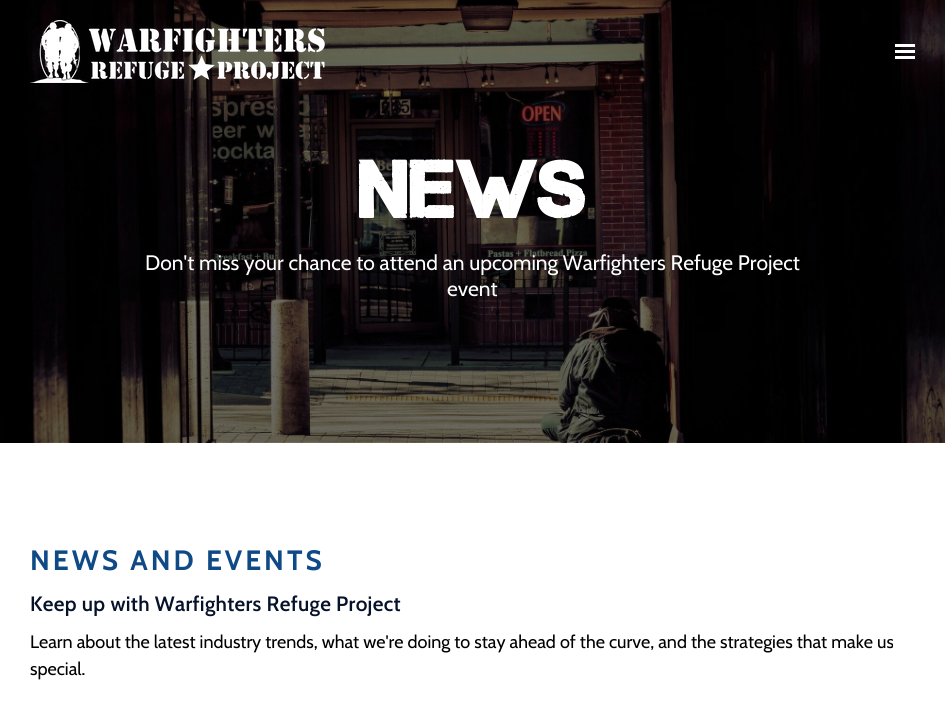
#include <cairo.h>
#include <math.h>
#include <stddef.h>

static cairo_t *c;
static void C(unsigned color){cairo_set_source_rgb(c, (color >> 16) / 255.0, (color >> 8 & 255) / 255.0, (color & 255) / 255.0);}
static void F(const char *family, double size, int italic, int bold){cairo_select_font_face(c, family, italic ? CAIRO_FONT_SLANT_ITALIC : CAIRO_FONT_SLANT_NORMAL,bold ? CAIRO_FONT_WEIGHT_BOLD : CAIRO_FONT_WEIGHT_NORMAL);cairo_set_font_size(c, size);}
static void T(double x, double y, const char *s){cairo_move_to(c, x, y);cairo_show_text(c, s);}
static void L(double x, double y, const char *s, double letter, double word){cairo_move_to(c, x, y);while (*s) {char ch[5] = {0};int n = 0;do ch[n++] = *s++; while ((*s & 0xC0) == 0x80);cairo_show_text(c, ch);cairo_rel_move_to(c, letter + word * (*ch == ' '), 0);}}
static void R(double x, double y, double w, double h){cairo_rectangle(c, x, y, w, h);cairo_fill(c);}
static void I(const char *path, double x, double y, double w, double h){cairo_surface_t *image = cairo_image_surface_create_from_png(path);cairo_save(c);cairo_set_source_surface(c, image, x, y);cairo_rectangle(c, x, y, w, h);cairo_fill(c);cairo_restore(c);cairo_surface_destroy(image);}
int main(void) {
cairo_surface_t *surface = cairo_image_surface_create(CAIRO_FORMAT_RGB24, 945, 714);
c = cairo_create(surface);
cairo_font_options_t *options = cairo_font_options_create();
cairo_font_options_set_hint_metrics(options, CAIRO_HINT_METRICS_OFF);
cairo_font_options_set_hint_style(options, CAIRO_HINT_STYLE_NONE);
cairo_set_font_options(c, options);
cairo_set_miter_limit(c, 4);
C(0xffffff);
cairo_paint(c);
I("2.png",0,0,945,443);
I("1.png",30,20,295,63);
C(0xffffff);
R(895,50,20,3);
R(895,44,20,3);
R(895,56,20,3);
F("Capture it",80,0,1);
L(359,218,"NEWS",2,0);
F("Cabin",21,0,0);
T(145,270,"Don't miss your chance to attend an upcoming Warfighters Refuge Project");
T(447,296,"event");
F("Cabin",28,0,1);
C(0x0f4a86);
L(30,570,"NEWS AND EVENTS",3,0);
F("Cabin SemiBold",20.75,0,0);
C(0x06112a);
L(30,611,"Keep up with Warfighters Refuge Project",.3,0);
F("Cabin",18,0,0);
C(0x000000);
T(30,648,"Learn about the latest industry trends, what we're doing to stay ahead of the curve, and the strategies that make us");
T(30,675,"special.");
cairo_surface_write_to_png(surface, "o.png");
cairo_font_options_destroy(options);
cairo_destroy(c);
cairo_surface_destroy(surface);
return 0;
}
